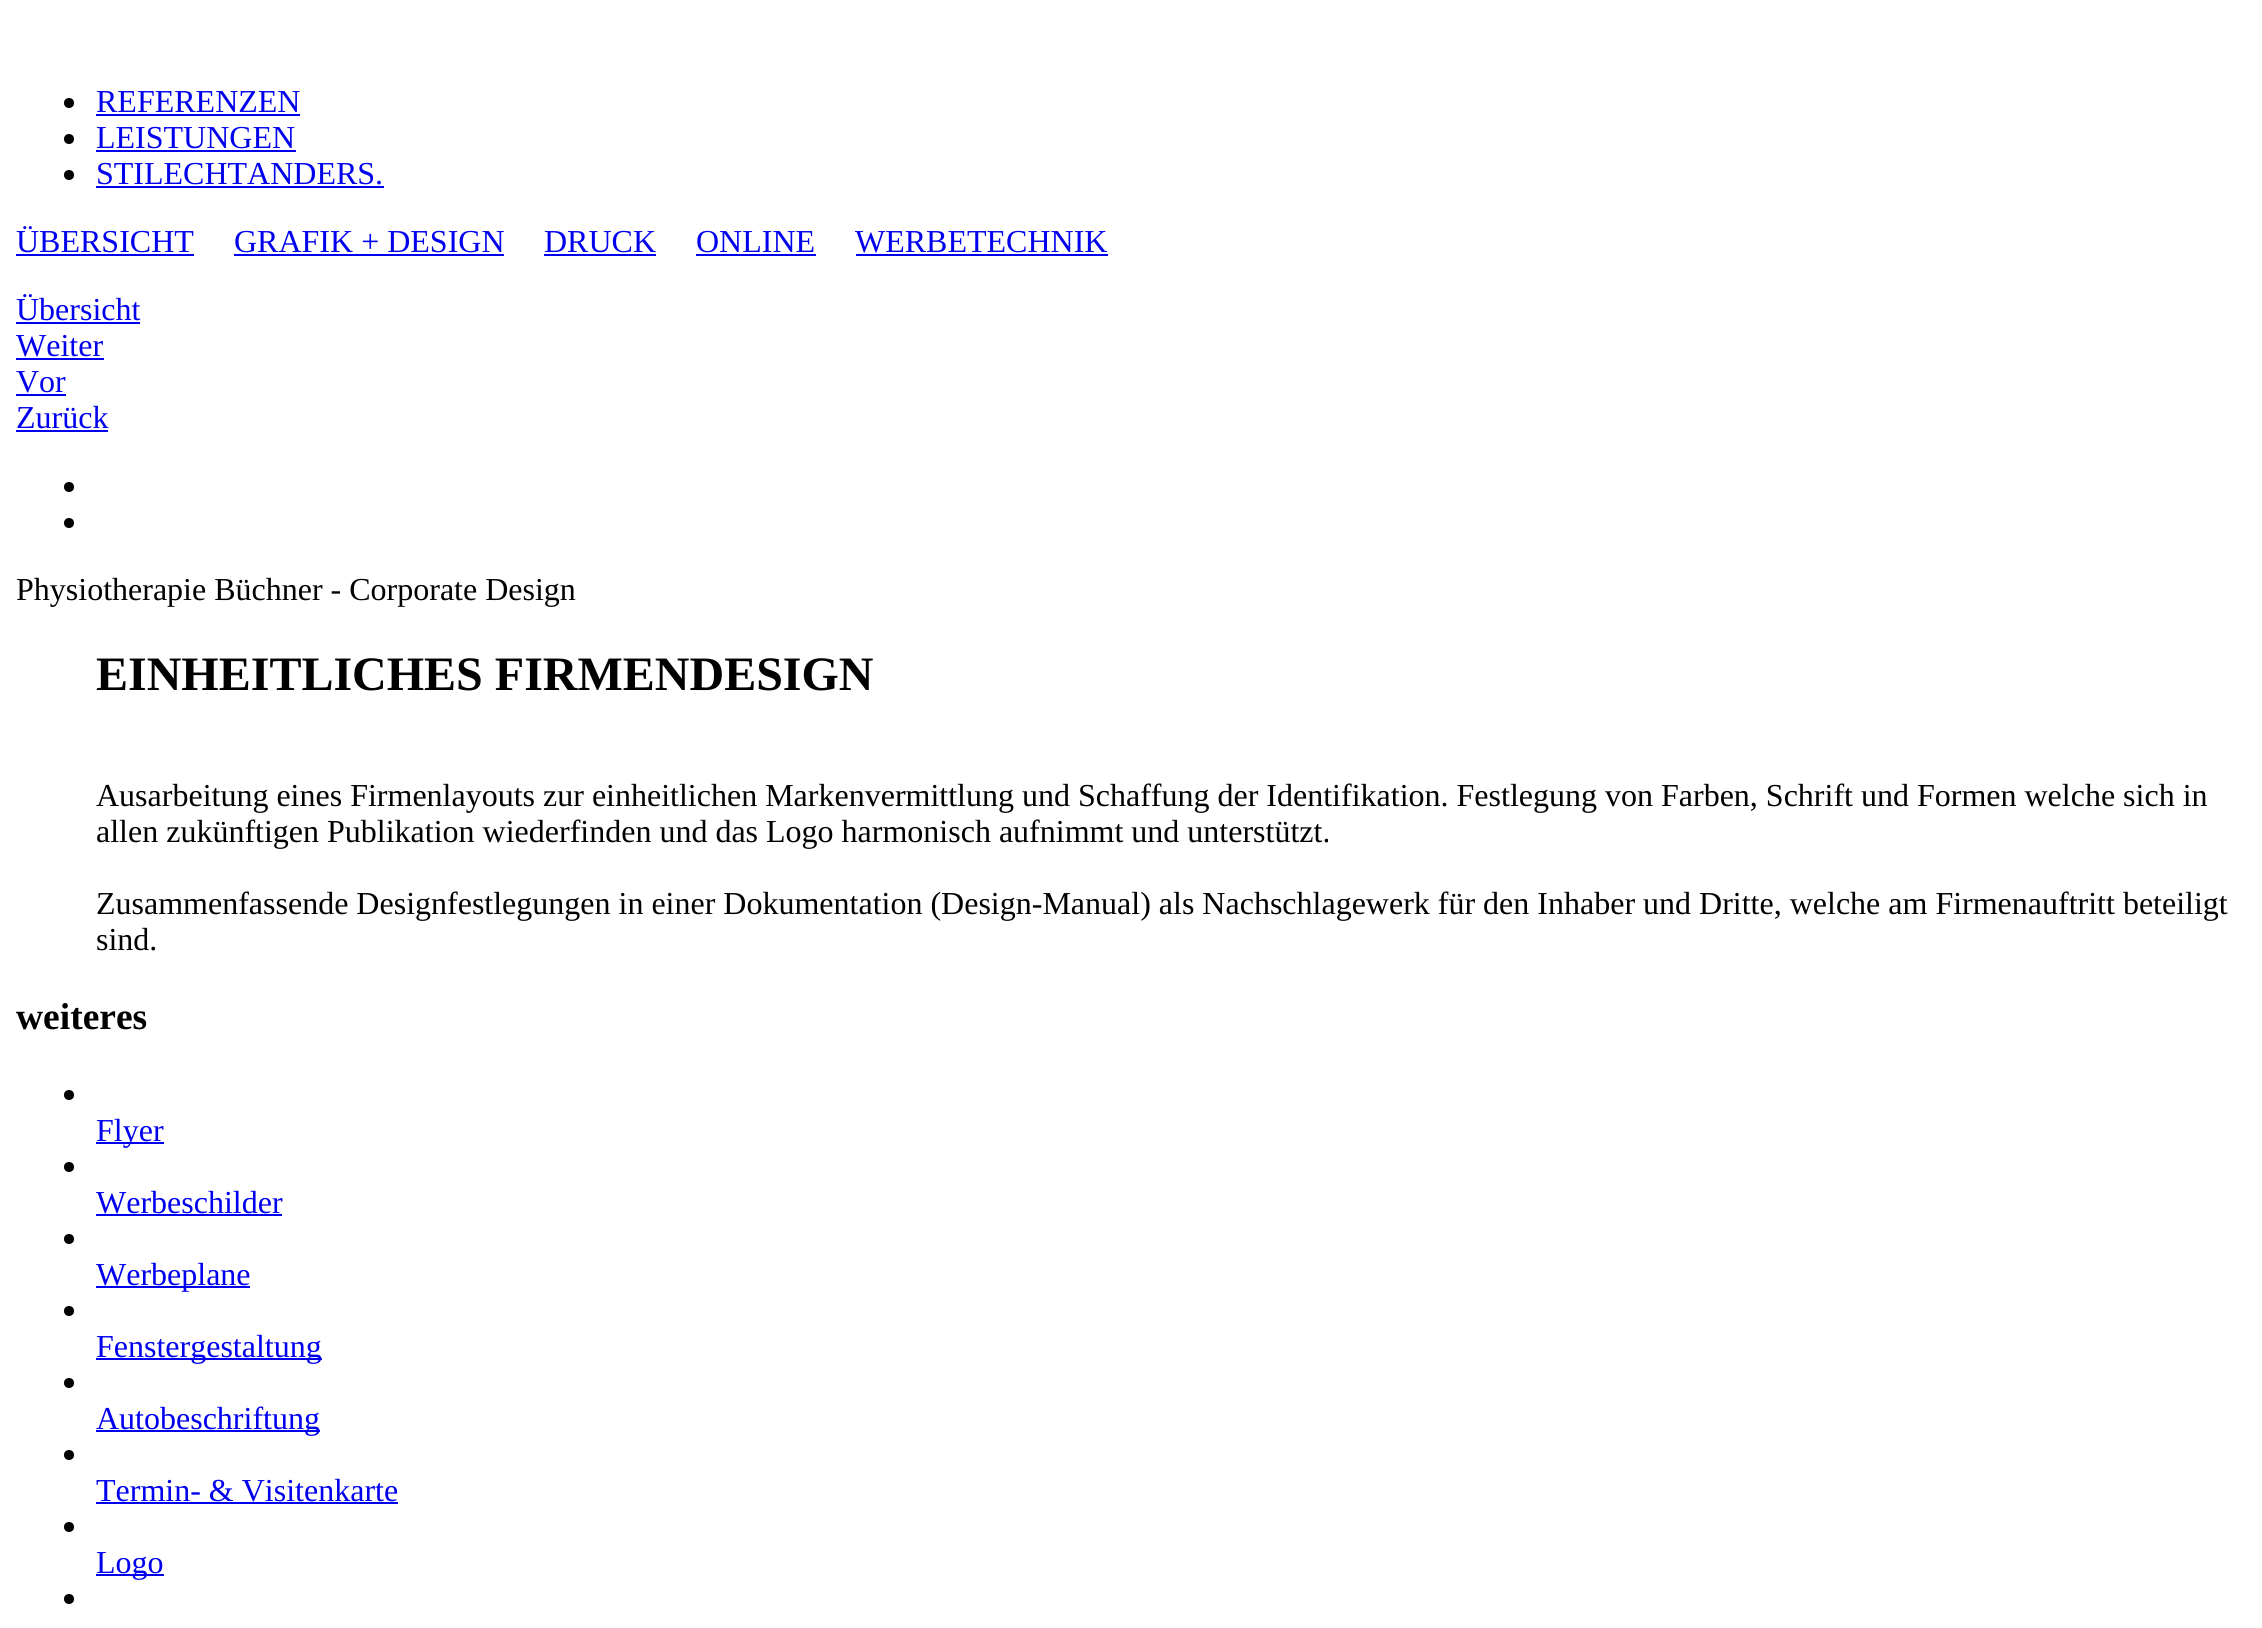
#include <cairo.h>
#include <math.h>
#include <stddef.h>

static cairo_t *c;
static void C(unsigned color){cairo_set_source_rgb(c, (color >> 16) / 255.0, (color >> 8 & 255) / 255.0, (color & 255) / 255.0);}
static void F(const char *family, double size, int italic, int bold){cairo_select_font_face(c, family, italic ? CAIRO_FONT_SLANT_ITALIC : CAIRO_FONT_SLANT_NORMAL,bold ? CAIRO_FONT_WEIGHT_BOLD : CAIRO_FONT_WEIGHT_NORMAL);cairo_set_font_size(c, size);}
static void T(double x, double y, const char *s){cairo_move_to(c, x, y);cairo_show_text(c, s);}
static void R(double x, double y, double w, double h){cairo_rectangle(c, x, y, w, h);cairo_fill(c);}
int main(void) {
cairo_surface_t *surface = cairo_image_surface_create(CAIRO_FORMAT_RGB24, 2262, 1628);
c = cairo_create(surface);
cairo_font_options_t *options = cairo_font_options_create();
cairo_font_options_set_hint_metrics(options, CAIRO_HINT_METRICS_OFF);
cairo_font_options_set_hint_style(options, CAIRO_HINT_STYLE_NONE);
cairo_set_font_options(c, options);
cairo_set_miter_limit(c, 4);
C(0xffffff);
cairo_paint(c);
C(0x000000);
cairo_arc(c,69,103,5,0,2 * M_PI);
cairo_fill(c);
F("Liberation Serif",32,0,0);
C(0x0000ee);
T(96,112,"REFERENZEN");
R(96,114,204,2);
C(0x000000);
cairo_new_path(c);
cairo_arc(c,69,139,5,0,2 * M_PI);
cairo_fill(c);
C(0x0000ee);
T(96,148,"LEISTUNGEN");
R(96,150,200,2);
C(0x000000);
cairo_new_path(c);
cairo_arc(c,69,175,5,0,2 * M_PI);
cairo_fill(c);
C(0x0000ee);
T(96,184,"STILECHTANDERS.");
R(96,186,288,2);
T(16,252,"ÜBERSICHT");
R(16,254,178,2);
T(234,252,"GRAFIK + DESIGN");
R(234,254,270,2);
T(544,252,"DRUCK");
R(544,254,112,2);
T(696,252,"ONLINE");
R(696,254,120,2);
T(855,252,"WERBETECHNIK");
R(856,254,252,2);
T(16,320,"Übersicht");
R(16,322,124,2);
T(16,356,"Weiter");
R(16,358,88,2);
T(16,392,"Vor");
R(16,394,50,2);
T(16,428,"Zurück");
R(16,430,92,2);
C(0x000000);
cairo_new_path(c);
cairo_arc(c,69,487,5,0,2 * M_PI);
cairo_fill(c);
cairo_arc(c,69,523,5,0,2 * M_PI);
cairo_fill(c);
T(16,600,"Physiotherapie Büchner - Corporate Design");
F("Liberation Serif",48,0,1);
T(96,690,"EINHEITLICHES FIRMENDESIGN");
F("Liberation Serif",32,0,0);
T(96,806,"Ausarbeitung eines Firmenlayouts zur einheitlichen Markenvermittlung und Schaffung der Identifikation. Festlegung von Farben, Schrift und Formen welche sich in");
T(96,842,"allen zukünftigen Publikation wiederfinden und das Logo harmonisch aufnimmt und unterstützt.");
T(96,914,"Zusammenfassende Designfestlegungen in einer Dokumentation (Design-Manual) als Nachschlagewerk für den Inhaber und Dritte, welche am Firmenauftritt beteiligt");
T(96,950,"sind.");
F("Liberation Serif",37.5,0,1);
T(16,1029,"weiteres");
cairo_new_path(c);
cairo_arc(c,69,1095,5,0,2 * M_PI);
cairo_fill(c);
C(0x0000ee);
R(96,1142,68,2);
F("Liberation Serif",32,0,0);
T(96,1141,"Flyer");
C(0x000000);
cairo_new_path(c);
cairo_arc(c,69,1167,5,0,2 * M_PI);
cairo_fill(c);
C(0x0000ee);
T(96,1213,"Werbeschilder");
R(96,1214,186,2);
C(0x000000);
cairo_new_path(c);
cairo_arc(c,69,1239,5,0,2 * M_PI);
cairo_fill(c);
C(0x0000ee);
R(96,1286,154,2);
T(96,1285,"Werbeplane");
C(0x000000);
cairo_new_path(c);
cairo_arc(c,69,1311,5,0,2 * M_PI);
cairo_fill(c);
C(0x0000ee);
R(96,1358,226,2);
T(96,1357,"Fenstergestaltung");
C(0x000000);
cairo_new_path(c);
cairo_arc(c,69,1383,5,0,2 * M_PI);
cairo_fill(c);
C(0x0000ee);
R(96,1430,224,2);
T(96,1429,"Autobeschriftung");
C(0x000000);
cairo_new_path(c);
cairo_arc(c,69,1455,5,0,2 * M_PI);
cairo_fill(c);
C(0x0000ee);
T(96,1501,"Termin- & Visitenkarte");
R(96,1502,302,2);
C(0x000000);
cairo_new_path(c);
cairo_arc(c,69,1527,5,0,2 * M_PI);
cairo_fill(c);
C(0x0000ee);
R(96,1574,68,2);
T(96,1573,"Logo");
C(0x000000);
cairo_new_path(c);
cairo_arc(c,69,1599,5,0,2 * M_PI);
cairo_fill(c);
cairo_surface_write_to_png(surface, "o.png");
cairo_font_options_destroy(options);
cairo_destroy(c);
cairo_surface_destroy(surface);
return 0;
}
